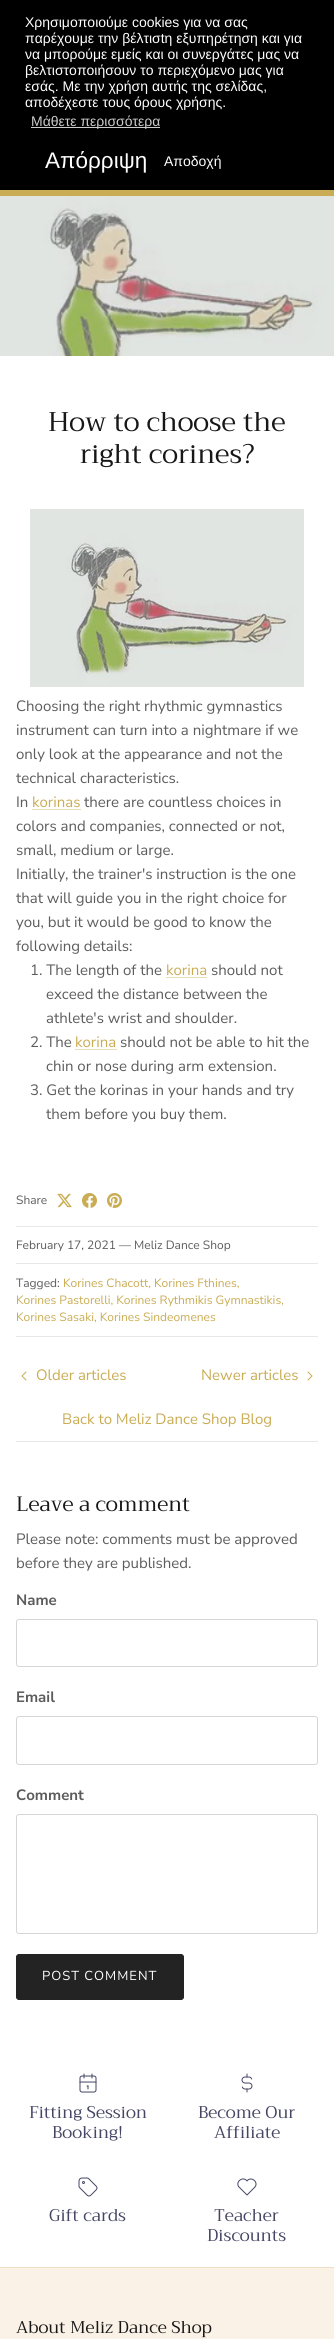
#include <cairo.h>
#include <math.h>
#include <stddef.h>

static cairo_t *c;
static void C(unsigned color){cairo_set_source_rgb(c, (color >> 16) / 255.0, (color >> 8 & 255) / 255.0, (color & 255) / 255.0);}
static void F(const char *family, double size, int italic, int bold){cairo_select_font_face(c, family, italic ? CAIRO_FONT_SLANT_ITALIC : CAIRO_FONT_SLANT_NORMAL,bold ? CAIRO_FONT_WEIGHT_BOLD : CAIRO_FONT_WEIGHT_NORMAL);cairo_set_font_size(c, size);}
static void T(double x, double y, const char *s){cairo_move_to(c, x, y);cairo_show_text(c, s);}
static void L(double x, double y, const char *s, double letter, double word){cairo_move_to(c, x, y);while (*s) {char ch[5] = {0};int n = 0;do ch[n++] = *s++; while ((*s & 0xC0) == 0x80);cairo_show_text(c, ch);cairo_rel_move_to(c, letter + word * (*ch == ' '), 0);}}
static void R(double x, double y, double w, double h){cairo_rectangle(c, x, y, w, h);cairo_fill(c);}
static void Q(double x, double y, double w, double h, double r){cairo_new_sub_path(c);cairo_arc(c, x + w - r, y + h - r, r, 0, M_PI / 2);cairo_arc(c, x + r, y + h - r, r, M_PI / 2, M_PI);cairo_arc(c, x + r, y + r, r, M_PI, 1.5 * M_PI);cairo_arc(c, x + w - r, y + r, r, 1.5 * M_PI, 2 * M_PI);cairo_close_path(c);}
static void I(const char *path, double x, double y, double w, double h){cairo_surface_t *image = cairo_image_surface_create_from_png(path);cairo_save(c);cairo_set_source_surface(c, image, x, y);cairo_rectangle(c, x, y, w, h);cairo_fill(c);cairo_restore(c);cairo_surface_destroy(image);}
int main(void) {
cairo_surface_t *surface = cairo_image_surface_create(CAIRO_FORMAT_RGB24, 334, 2339);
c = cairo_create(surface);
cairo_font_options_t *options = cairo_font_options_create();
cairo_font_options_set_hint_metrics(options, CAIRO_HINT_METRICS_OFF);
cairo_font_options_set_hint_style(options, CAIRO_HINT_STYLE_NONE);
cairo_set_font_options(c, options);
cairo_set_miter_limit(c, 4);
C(0xffffff);
cairo_paint(c);
C(0x000000);
R(0,0,334,190);
F("Liberation Sans",14,0,0);
C(0xffffff);
T(25,27,"Χρησιμοποιούμε cookies για να σας");
T(25,43,"παρέχουμε την βέλτισtη εξυπηρέτηση και για");
T(25,59,"να μπορούμε εμείς και οι συνεργάτες μας να");
T(25,75,"βελτιστοποιήσουν το περιεχόμενο μας για");
T(25,91,"εσάς. Με την χρήση αυτής της σελίδας,");
T(25,107,"αποδέχεστε τους όρους χρήσης.");
C(0xcccccc);
R(31,127,129,1);
T(31,126,"Μάθετε περισσότερα");
F("Liberation Sans",22.5,0,0);
C(0xffffff);
T(45,168,"Απόρριψη");
F("Liberation Sans",14,0,0);
T(164,166,"Αποδοχή");
C(0xc9ac53);
R(0,190,334,6);
I("1.png",0,196,334,160);
F("Trirong",27,0,0);
C(0x171717);
T(48,431,"How to choose the");
T(80,463,"right corines?");
I("2.png",30,509,274,178);
F("Nunito Sans",15,0,0);
C(0x5c5c5c);
T(16,711,"Choosing the right rhythmic gymnastics");
T(16,735,"instrument can turn into a nightmare if we");
T(16,759,"only look at the appearance and not the");
T(16,783,"technical characteristics.");
T(16,807,"In");
C(0xc9ac53);
T(32,807,"korinas");
C(0xe9deba);
R(32,809,49,1);
C(0x5c5c5c);
T(84,807,"there are countless choices in");
T(16,831,"colors and companies, connected or not,");
T(16,855,"small, medium or large.");
T(16,879,"Initially, the trainer's instruction is the one");
T(16,903,"that will guide you in the right choice for");
T(16,927,"you, but it would be good to know the");
T(16,951,"following details:");
T(30,975,"1. The length of the");
C(0xc9ac53);
T(166,975,"korina");
C(0xe9deba);
R(166,977,41,1);
C(0x5c5c5c);
T(211,975,"should not");
T(46,999,"exceed the distance between the");
T(46,1023,"athlete's wrist and shoulder.");
T(30,1047,"2. The");
C(0xc9ac53);
T(75,1047,"korina");
C(0xe9deba);
R(75,1049,42,1);
C(0x5c5c5c);
T(120,1047,"should not be able to hit the");
T(46,1071,"chin or nose during arm extension.");
T(30,1095,"3. Get the korinas in your hands and try");
T(46,1119,"them before you buy them.");
F("Nunito Sans",12,0,0);
T(16,1204,"Share");
I("3.png",57,1193,15,15);
I("4.png",82,1193,15,15);
I("5.png",107,1193,15,15);
C(0xe8e8e8);
R(16,1226,302,1);
R(16,1263,302,1);
C(0x5c5c5c);
T(16,1249,"February 17, 2021 — Meliz Dance Shop");
C(0xe8e8e8);
R(16,1336,302,1);
C(0x5c5c5c);
T(16,1287,"Tagged:");
C(0xc9ac53);
T(63,1287,"Korines Chacott, Korines Fthines,");
T(16,1304,"Korines Pastorelli, Korines Rythmikis Gymnastikis,");
T(16,1321,"Korines Sasaki, Korines Sindeomenes");
C(0xe8e8e8);
R(16,1441,302,1);
F("Nunito Sans",15,0,0);
C(0xc9ac53);
T(36,1380,"Older articles");
cairo_new_path(c);
cairo_move_to(c,26,1380);
cairo_line_to(c,22,1376);
cairo_line_to(c,26,1372);
cairo_set_line_width(c,1);
cairo_set_line_cap(c,CAIRO_LINE_CAP_ROUND);
cairo_set_line_join(c,CAIRO_LINE_JOIN_ROUND);
cairo_stroke(c);
T(201,1380,"Newer articles");
cairo_new_path(c);
cairo_move_to(c,308,1380);
cairo_line_to(c,312,1376);
cairo_line_to(c,308,1372);
cairo_stroke(c);
T(62,1424,"Back to Meliz Dance Shop Blog");
F("Trirong",20.75,0,0);
C(0x171717);
T(16,1511,"Leave a comment");
F("Nunito Sans",15,0,0);
C(0x5c5c5c);
T(16,1544,"Please note: comments must be approved");
T(16,1568,"before they are published.");
F("Nunito Sans",15,0,1);
T(16,1605,"Name");
Q(16.5,1619.5,301,47,2.5);
C(0xd6d6d6);
cairo_set_line_cap(c,CAIRO_LINE_CAP_BUTT);
cairo_set_line_join(c,CAIRO_LINE_JOIN_MITER);
cairo_stroke(c);
C(0x5c5c5c);
T(16,1702,"Email");
Q(16.5,1716.5,301,48,2.5);
C(0xd6d6d6);
cairo_stroke(c);
C(0x5c5c5c);
T(16,1800,"Comment");
Q(16.5,1814.5,301,119,2.5);
C(0xd6d6d6);
cairo_stroke(c);
C(0x232323);
Q(16.5,1954.5,167,45,2.5);
cairo_fill_preserve(c);
cairo_stroke(c);
F("Nunito Sans",13,0,0);
C(0xffffff);
L(42,1980,"POST COMMENT",1,0);
I("6.png",79,2073,18,20);
F("Trirong",17,0,0);
C(0x454564);
T(29,2118,"Fitting Session");
T(52,2138,"Booking!");
I("7.png",241,2073,12,20);
T(198,2118,"Become Our");
T(214,2138,"Affiliate");
I("8.png",78,2177,20,20);
T(49,2221,"Gift cards");
cairo_new_path(c);
cairo_move_to(c,254.5,2187.5);
cairo_line_to(c,247,2195);
cairo_line_to(c,238.5,2186.5);
cairo_curve_to(c,235.5,2181,243.5,2176,247,2181);
cairo_curve_to(c,251,2175.5,259.5,2182.5,254.5,2187.5);
cairo_set_line_cap(c,CAIRO_LINE_CAP_ROUND);
cairo_set_line_join(c,CAIRO_LINE_JOIN_ROUND);
cairo_stroke(c);
T(214,2221,"Teacher");
T(207,2241,"Discounts");
C(0xfaf2e6);
R(0,2268,334,71);
C(0xefdfc7);
R(0,2267,334,1);
C(0x171717);
T(16,2333,"About Meliz Dance Shop");
cairo_surface_write_to_png(surface, "o.png");
cairo_font_options_destroy(options);
cairo_destroy(c);
cairo_surface_destroy(surface);
return 0;
}
